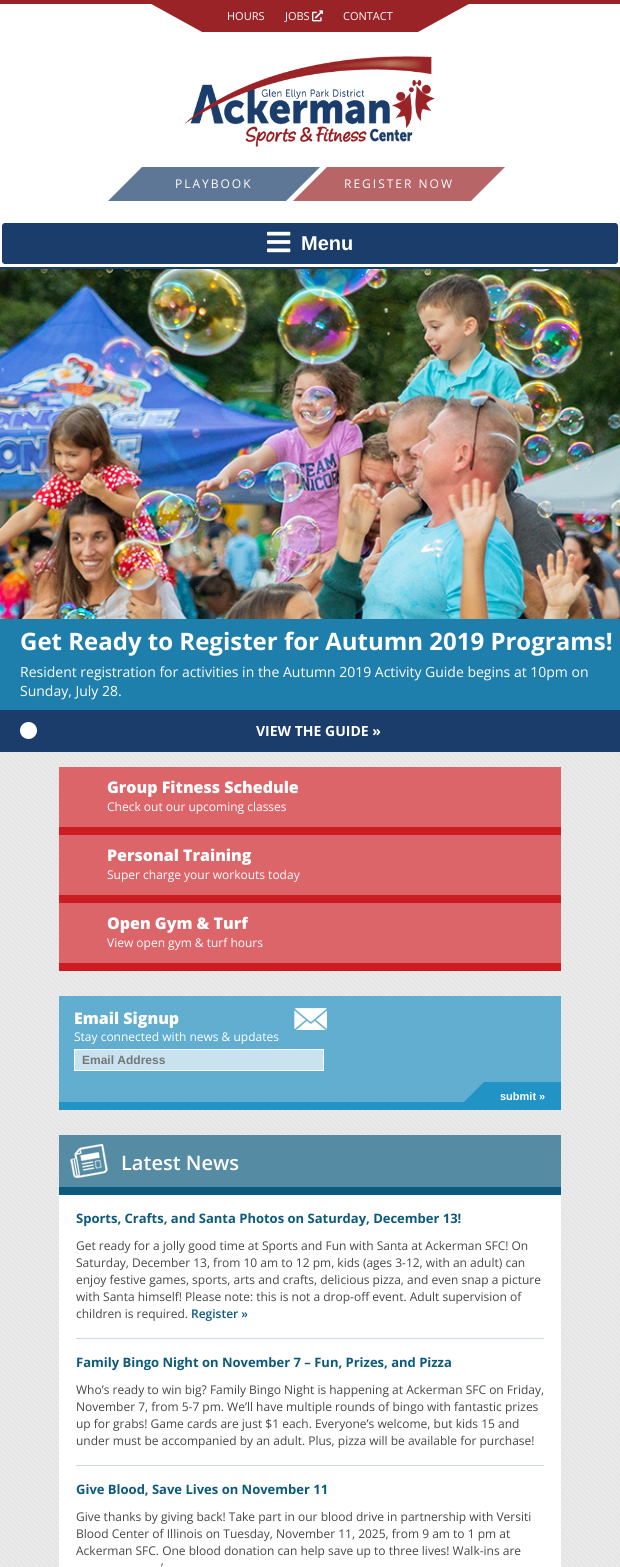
#include <cairo.h>
#include <math.h>
#include <stddef.h>

static cairo_t *c;
static void C(unsigned color){cairo_set_source_rgb(c, (color >> 16) / 255.0, (color >> 8 & 255) / 255.0, (color & 255) / 255.0);}
static void F(const char *family, double size, int italic, int bold){cairo_select_font_face(c, family, italic ? CAIRO_FONT_SLANT_ITALIC : CAIRO_FONT_SLANT_NORMAL,bold ? CAIRO_FONT_WEIGHT_BOLD : CAIRO_FONT_WEIGHT_NORMAL);cairo_set_font_size(c, size);}
static void T(double x, double y, const char *s){cairo_move_to(c, x, y);cairo_show_text(c, s);}
static void L(double x, double y, const char *s, double letter, double word){cairo_move_to(c, x, y);while (*s) {char ch[5] = {0};int n = 0;do ch[n++] = *s++; while ((*s & 0xC0) == 0x80);cairo_show_text(c, ch);cairo_rel_move_to(c, letter + word * (*ch == ' '), 0);}}
static void R(double x, double y, double w, double h){cairo_rectangle(c, x, y, w, h);cairo_fill(c);}
static void Q(double x, double y, double w, double h, double r){cairo_new_sub_path(c);cairo_arc(c, x + w - r, y + h - r, r, 0, M_PI / 2);cairo_arc(c, x + r, y + h - r, r, M_PI / 2, M_PI);cairo_arc(c, x + r, y + r, r, M_PI, 1.5 * M_PI);cairo_arc(c, x + w - r, y + r, r, 1.5 * M_PI, 2 * M_PI);cairo_close_path(c);}
static void I(const char *path, double x, double y, double w, double h){cairo_surface_t *image = cairo_image_surface_create_from_png(path);cairo_save(c);cairo_set_source_surface(c, image, x, y);cairo_rectangle(c, x, y, w, h);cairo_fill(c);cairo_restore(c);cairo_surface_destroy(image);}
int main(void) {
cairo_surface_t *surface = cairo_image_surface_create(CAIRO_FORMAT_RGB24, 620, 1567);
c = cairo_create(surface);
cairo_font_options_t *options = cairo_font_options_create();
cairo_font_options_set_hint_metrics(options, CAIRO_HINT_METRICS_OFF);
cairo_font_options_set_hint_style(options, CAIRO_HINT_STYLE_NONE);
cairo_set_font_options(c, options);
cairo_set_miter_limit(c, 4);
C(0xffffff);
cairo_paint(c);
I("1.png",0,752,620,815);
C(0x992327);
R(0,0,620,4);
C(0x1b3d6b);
R(0,267,620,2);
C(0x992327);
R(202,4,216,28);
cairo_new_path(c);
cairo_move_to(c,144,0);
cairo_line_to(c,202,0);
cairo_line_to(c,202,32);
cairo_close_path(c);
cairo_fill(c);
F("Open Sans",11,0,0);
C(0xffffff);
T(227,20,"HOURS");
T(285,20,"JOBS");
I("2.png",312,10,11,12);
T(343,20,"CONTACT");
C(0x992327);
cairo_new_path(c);
cairo_move_to(c,418,0);
cairo_line_to(c,476,0);
cairo_line_to(c,418,32);
cairo_close_path(c);
cairo_fill(c);
I("3.png",185,56,250,91);
C(0x5f7797);
cairo_new_path(c);
cairo_move_to(c,142,167);
cairo_line_to(c,320,167);
cairo_line_to(c,286,201);
cairo_line_to(c,108,201);
cairo_close_path(c);
cairo_fill(c);
F("Open Sans",12,0,0);
C(0xffffff);
L(175,188,"PLAYBOOK",2,0);
C(0xb86568);
cairo_new_path(c);
cairo_move_to(c,327,167);
cairo_line_to(c,505,167);
cairo_line_to(c,471,201);
cairo_line_to(c,293,201);
cairo_close_path(c);
cairo_fill(c);
C(0xffffff);
L(344,188,"REGISTER NOW",2,0);
C(0x1b3d6b);
Q(1,222,618,43,4);
cairo_fill_preserve(c);
C(0xffffff);
cairo_stroke(c);
I("4.png",267,231,24,22);
F("Liberation Sans",20,0,1);
T(301,250,"Menu");
I("5.png",0,269,620,350);
C(0x1e7fad);
R(0,619,620,91);
F("Open Sans",24,0,1);
C(0xffffff);
T(20,650,"Get Ready to Register for Autumn 2019 Programs!");
F("Open Sans",14,0,0);
T(20,677,"Resident registration for activities in the Autumn 2019 Activity Guide begins at 10pm on");
T(20,696,"Sunday, July 28.");
C(0x1b3d6b);
R(0,710,620,42);
F("Open Sans",14,0,1);
C(0xffffff);
T(256,736,"VIEW THE GUIDE »");
cairo_new_path(c);
cairo_arc(c,28.5,730.5,7.5,0,2 * M_PI);
cairo_fill_preserve(c);
cairo_stroke(c);
C(0xcc1c22);
R(59,827,502,8);
C(0xdc6569);
R(59,767,502,60);
F("Open Sans ExtraBold",16,0,0);
C(0xffffff);
T(107,793,"Group Fitness Schedule");
F("Open Sans",12,0,0);
T(107,811,"Check out our upcoming classes");
C(0xcc1c22);
R(59,895,502,8);
C(0xdc6569);
R(59,835,502,60);
F("Open Sans ExtraBold",16,0,0);
C(0xffffff);
T(107,861,"Personal Training");
F("Open Sans",12,0,0);
T(107,879,"Super charge your workouts today");
C(0xcc1c22);
R(59,963,502,8);
C(0xdc6569);
R(59,903,502,60);
F("Open Sans ExtraBold",16,0,0);
C(0xffffff);
T(107,929,"Open Gym & Turf");
F("Open Sans",12,0,0);
T(107,947,"View open gym & turf hours");
cairo_set_source_rgba(c,0.133,0.576,0.773,0.68);
R(59,996,502,106);
I("6.png",294,1008,33,22);
C(0x2293c5);
R(59,1102,405,8);
F("Open Sans ExtraBold",16,0,0);
C(0xffffff);
T(74,1024,"Email Signup");
F("Open Sans",12,0,0);
T(74,1041,"Stay connected with news & updates");
C(0xc8e3ef);
cairo_rectangle(c,74.5,1049.5,249,21);
cairo_fill_preserve(c);
C(0xffffff);
cairo_set_line_width(c,1);
cairo_stroke(c);
F("Liberation Sans",12,0,1);
C(0x757575);
T(82,1064,"Email Address");
C(0x2293c5);
cairo_new_path(c);
cairo_move_to(c,484,1110);
cairo_line_to(c,456,1110);
cairo_line_to(c,484,1082);
cairo_close_path(c);
cairo_fill(c);
R(484,1082,77,28);
F("Liberation Sans",11,0,1);
C(0xffffff);
T(500,1100,"submit »");
R(59,1195,502,372);
C(0x558ca4);
R(59,1135,502,52);
I("7.png",70,1144,38,34);
C(0x0c5a7d);
R(59,1187,502,8);
F("Open Sans SemiBold",20,0,0);
C(0xffffff);
T(121,1170,"Latest News");
C(0xcadbe2);
R(76,1338,468,1);
F("Open Sans",13,0,1);
C(0x0c5a7c);
T(76,1223,"Sports, Crafts, and Santa Photos on Saturday, December 13!");
F("Open Sans",12,0,0);
C(0x464646);
T(76,1250,"Get ready for a jolly good time at Sports and Fun with Santa at Ackerman SFC! On");
T(76,1267,"Saturday, December 13, from 10 am to 12 pm, kids (ages 3-12, with an adult) can");
T(76,1284,"enjoy festive games, sports, arts and crafts, delicious pizza, and even snap a picture");
T(76,1301,"with Santa himself! Please note: this is not a drop-off event. Adult supervision of");
T(76,1318,"children is required.");
F("Open Sans SemiBold",12,0,0);
C(0x0c5a7c);
T(191,1318,"Register »");
C(0xcadbe2);
R(76,1465,468,1);
F("Open Sans",13,0,1);
C(0x0c5a7c);
T(76,1367,"Family Bingo Night on November 7 – Fun, Prizes, and Pizza");
F("Open Sans",12,0,0);
C(0x464646);
T(76,1394,"Who’s ready to win big? Family Bingo Night is happening at Ackerman SFC on Friday,");
T(76,1411,"November 7, from 5-7 pm. We’ll have multiple rounds of bingo with fantastic prizes");
T(76,1428,"up for grabs! Game cards are just $1 each. Everyone’s welcome, but kids 15 and");
T(76,1445,"under must be accompanied by an adult. Plus, pizza will be available for purchase!");
F("Open Sans",13,0,1);
C(0x0c5a7c);
T(76,1494,"Give Blood, Save Lives on November 11");
F("Open Sans",12,0,0);
C(0x464646);
T(76,1521,"Give thanks by giving back! Take part in our blood drive in partnership with Versiti");
T(76,1538,"Blood Center of Illinois on Tuesday, November 11, 2025, from 9 am to 1 pm at");
T(76,1555,"Ackerman SFC. One blood donation can help save up to three lives! Walk-ins are");
T(161,1572,"’");
cairo_surface_write_to_png(surface, "o.png");
cairo_font_options_destroy(options);
cairo_destroy(c);
cairo_surface_destroy(surface);
return 0;
}
